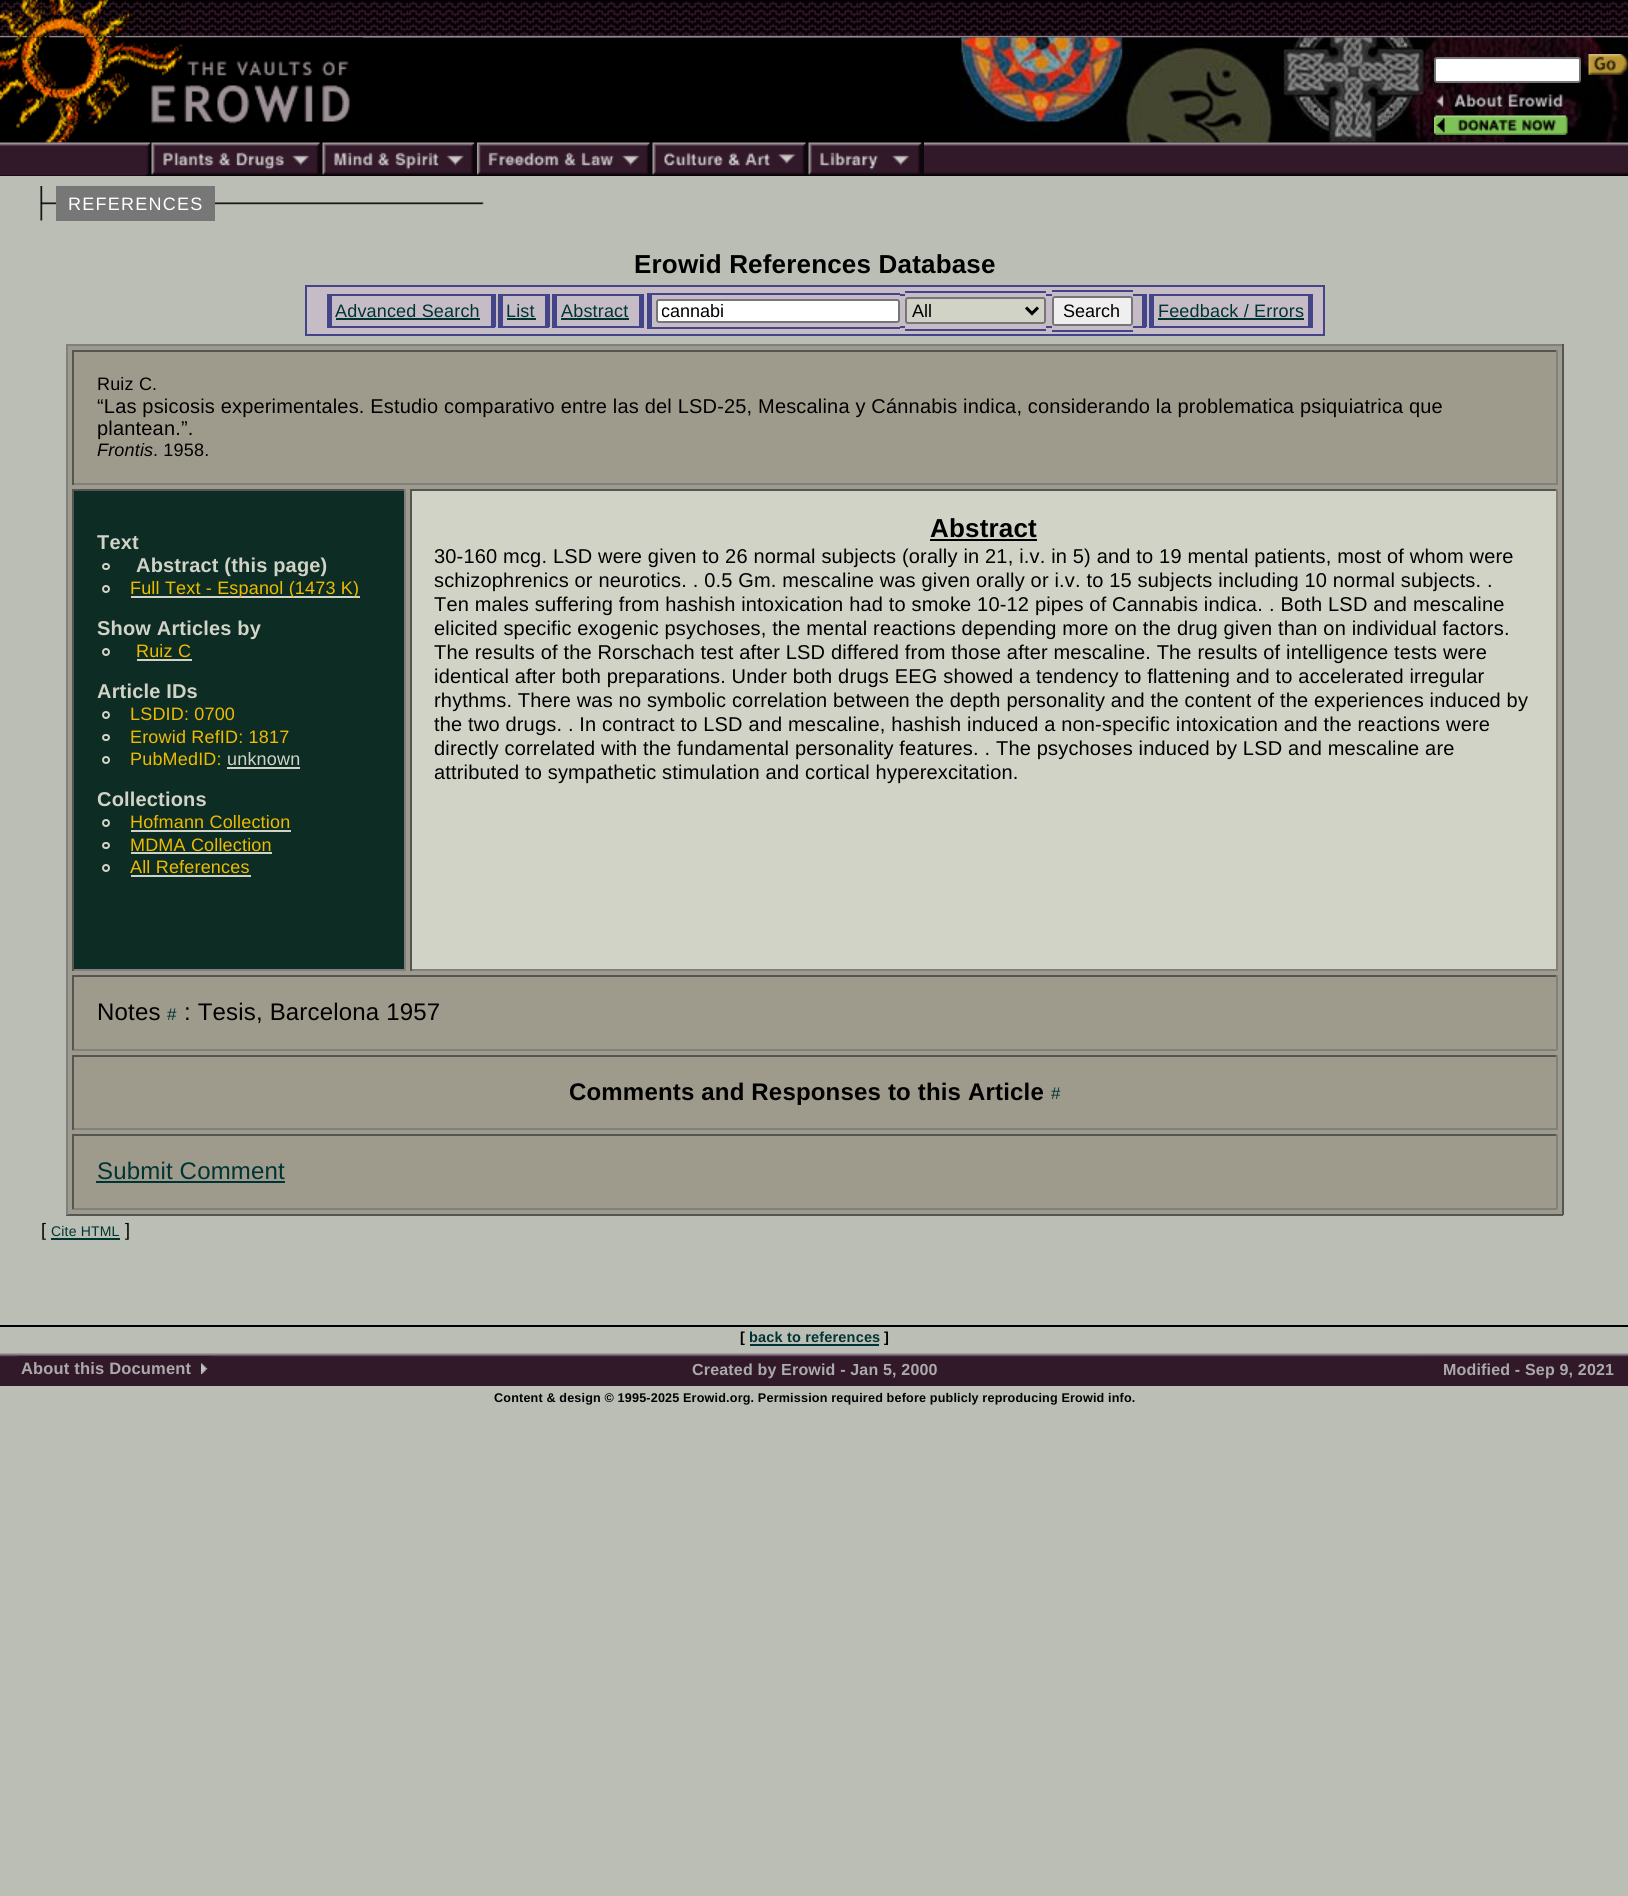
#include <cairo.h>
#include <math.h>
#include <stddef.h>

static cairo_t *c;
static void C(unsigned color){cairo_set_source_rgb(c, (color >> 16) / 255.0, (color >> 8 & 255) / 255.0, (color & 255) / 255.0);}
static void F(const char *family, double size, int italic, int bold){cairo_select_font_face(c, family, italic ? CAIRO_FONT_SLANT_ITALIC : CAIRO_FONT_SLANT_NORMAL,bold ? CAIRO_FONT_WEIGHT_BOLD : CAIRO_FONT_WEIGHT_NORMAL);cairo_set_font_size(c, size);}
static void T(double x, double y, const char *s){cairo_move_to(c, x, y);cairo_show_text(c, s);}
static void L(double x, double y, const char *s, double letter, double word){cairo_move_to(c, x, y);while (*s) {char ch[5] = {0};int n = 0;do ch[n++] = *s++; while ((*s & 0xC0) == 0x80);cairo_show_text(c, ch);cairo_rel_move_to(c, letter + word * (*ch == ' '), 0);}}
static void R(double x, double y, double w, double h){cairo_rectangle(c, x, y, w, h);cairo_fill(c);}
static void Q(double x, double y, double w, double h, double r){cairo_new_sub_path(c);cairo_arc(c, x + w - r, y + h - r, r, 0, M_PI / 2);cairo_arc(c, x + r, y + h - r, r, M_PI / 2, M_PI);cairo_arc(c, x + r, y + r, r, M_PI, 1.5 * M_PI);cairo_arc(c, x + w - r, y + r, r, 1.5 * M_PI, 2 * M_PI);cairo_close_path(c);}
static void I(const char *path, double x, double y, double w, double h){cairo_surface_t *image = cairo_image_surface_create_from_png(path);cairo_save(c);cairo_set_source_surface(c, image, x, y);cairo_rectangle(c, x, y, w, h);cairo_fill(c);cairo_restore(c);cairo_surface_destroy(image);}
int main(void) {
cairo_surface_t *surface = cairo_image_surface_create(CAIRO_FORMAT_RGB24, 1628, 1896);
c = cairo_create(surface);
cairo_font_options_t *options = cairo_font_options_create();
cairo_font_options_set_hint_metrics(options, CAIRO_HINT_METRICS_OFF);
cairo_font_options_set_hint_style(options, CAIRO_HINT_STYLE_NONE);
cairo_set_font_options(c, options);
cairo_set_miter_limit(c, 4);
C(0xbbbeb5);
cairo_paint(c);
C(0x000000);
R(0,0,1628,176);
I("1.png",0,0,183,38);
I("2.png",183,1,1445,37);
I("3.png",0,37,183,106);
I("4.png",183,37,180,87);
I("5.png",960,37,474,106);
I("6.png",1434,37,194,106);
C(0xffffff);
Q(1435,58,145,24,2);
cairo_fill_preserve(c);
C(0x767676);
cairo_stroke(c);
I("7.png",1588,54,40,21);
I("8.png",1435,94,129,14);
I("9.png",1434,115,134,20);
I("10.png",0,142,151,34);
I("11.png",151,142,172,34);
I("12.png",322,142,155,34);
I("13.png",477,142,176,34);
I("14.png",652,142,157,34);
I("15.png",808,142,116,34);
I("16.png",924,142,704,34);
I("17.png",40,186,444,35);
C(0x777777);
R(56,186,159,35);
F("Liberation Sans",18,0,0);
C(0xffffff);
L(68,210,"REFERENCES",1.25,0);
F("Liberation Sans",26,0,1);
C(0x000000);
L(634,273,"Erowid References Database",.18,0);
C(0xc5bcc6);
cairo_rectangle(c,306,286,1018,49);
cairo_fill_preserve(c);
C(0x444488);
cairo_stroke(c);
F("Liberation Sans",18,0,0);
C(0x003333);
L(335,317,"Advanced Search",.18,0);
C(0x444488);
R(327,294,168,2);
R(327,326,153,2);
R(327,294,5,33);
R(491,294,5,33);
R(480,326,15,2);
C(0x003333);
R(336,318,144,2);
L(506,317,"List",.18,0);
C(0x444488);
R(498,294,51,2);
R(498,326,38,2);
R(498,294,5,33);
R(545,294,5,33);
R(536,326,13,2);
C(0x003333);
R(507,318,29,2);
L(561,317,"Abstract",.18,0);
C(0x444488);
R(552,294,92,2);
R(552,326,77,2);
R(552,294,5,33);
R(639,294,5,33);
R(629,326,15,2);
C(0x003333);
R(561,318,68,2);
C(0x444488);
R(647,293,253,2);
R(647,327,253,2);
R(647,293,5,36);
R(900,294,5,2);
R(900,326,5,2);
R(905,291,141,2);
R(905,329,141,2);
R(1046,294,6,2);
R(1046,326,6,2);
R(1052,290,81,2);
R(1052,330,81,2);
R(1133,294,13,2);
R(1142,294,5,33);
R(1133,326,13,2);
C(0xffffff);
Q(657,300,242,22,2);
cairo_fill_preserve(c);
C(0x767676);
cairo_stroke(c);
cairo_save(c);
cairo_rectangle(c,662,302,232,18);
cairo_clip(c);
C(0x000000);
T(661,317,"cannabi");
cairo_restore(c);
C(0xd1d3c7);
Q(906,298,139,25,2);
cairo_fill_preserve(c);
C(0x767676);
cairo_stroke(c);
cairo_new_path(c);
cairo_move_to(c,1026,307.5);
cairo_line_to(c,1032,313.5);
cairo_line_to(c,1038,307.5);
C(0x000000);
cairo_set_line_width(c,3);
cairo_stroke(c);
T(912,317,"All");
C(0xefefef);
Q(1053,297,79,28,2);
cairo_fill_preserve(c);
C(0x767676);
cairo_set_line_width(c,2);
cairo_stroke(c);
C(0x000000);
T(1063,317,"Search");
C(0x003333);
L(1158,317,"Feedback / Errors",.18,0);
C(0x444488);
R(1149,294,164,2);
R(1308,294,5,33);
R(1149,326,164,2);
R(1149,294,5,33);
C(0x003333);
R(1158,318,146,2);
C(0x9f9b8c);
R(68,346,1494,868);
C(0x808080);
R(66,344,1497,2);
C(0x555555);
R(1562,344,2,871);
R(66,1214,1497,2);
C(0x808080);
R(66,344,2,871);
C(0x555555);
R(72,350,1485,2);
C(0x808080);
R(1556,350,2,135);
R(72,483,1485,2);
C(0x555555);
R(72,350,2,135);
C(0x000000);
L(97,390,"Ruiz C.",.18,0);
F("Liberation Sans",20,0,0);
L(97,413,"“Las psicosis experimentales. Estudio comparativo entre las del LSD-25, Mescalina y Cánnabis indica, considerando la problematica psiquiatrica que",.18,0);
L(97,435,"plantean.”.",.18,0);
F("Liberation Sans",18,1,0);
L(97,456,"Frontis",.18,0);
F("Liberation Sans",18,0,0);
L(153,456,". 1958.",.18,0);
C(0x0d2c24);
R(74,491,330,478);
C(0x555555);
R(72,489,333,2);
C(0x808080);
R(404,489,2,482);
R(72,969,333,2);
C(0x555555);
R(72,489,2,482);
F("Liberation Sans",20,0,1);
C(0xd1d3c7);
L(97,549,"Text",.18,0);
Q(103,564,6,5,2.5);
cairo_stroke(c);
L(136,572,"Abstract (this page)",.18,0);
cairo_new_path(c);
cairo_arc(c,106,589,3,0,2 * M_PI);
cairo_stroke(c);
R(131,596,229,2);
F("Liberation Sans",18,0,0);
C(0xeebb00);
L(130,594,"Full Text - Espanol (1473 K)",.18,0);
F("Liberation Sans",20,0,1);
C(0xd1d3c7);
L(97,635,"Show Articles by",.18,0);
cairo_new_path(c);
cairo_arc(c,106,652,3,0,2 * M_PI);
cairo_stroke(c);
F("Liberation Sans",18,0,0);
C(0xeebb00);
L(136,657,"Ruiz C",.18,0);
C(0xd1d3c7);
R(137,659,55,2);
F("Liberation Sans",20,0,1);
L(97,698,"Article IDs",.18,0);
cairo_new_path(c);
cairo_arc(c,106,715,3,0,2 * M_PI);
cairo_stroke(c);
F("Liberation Sans",18,0,0);
C(0xeebb00);
L(130,720,"LSDID: 0700",.18,0);
Q(103,735,6,5,2.5);
C(0xd1d3c7);
cairo_stroke(c);
C(0xeebb00);
L(130,743,"Erowid RefID: 1817",.18,0);
cairo_new_path(c);
cairo_arc(c,106,760,3,0,2 * M_PI);
C(0xd1d3c7);
cairo_stroke(c);
C(0xeebb00);
L(130,765,"PubMedID:",.18,0);
C(0xd1d3c7);
L(227,765,"unknown",.18,0);
R(227,767,73,2);
F("Liberation Sans",20,0,1);
L(97,806,"Collections",.18,0);
cairo_new_path(c);
cairo_arc(c,106,823,3,0,2 * M_PI);
cairo_stroke(c);
F("Liberation Sans",18,0,0);
C(0xeebb00);
L(130,828,"Hofmann Collection",.18,0);
C(0xd1d3c7);
R(131,830,160,2);
Q(103,843,6,5,2.5);
cairo_stroke(c);
C(0xeebb00);
L(130,851,"MDMA Collection",.18,0);
C(0xd1d3c7);
R(131,852,141,2);
cairo_new_path(c);
cairo_arc(c,106,868,3,0,2 * M_PI);
cairo_stroke(c);
C(0xeebb00);
L(130,873,"All References",.18,0);
C(0xd1d3c7);
R(131,875,120,2);
R(412,491,1144,478);
C(0x555555);
R(410,489,1147,2);
C(0x808080);
R(1556,489,2,482);
R(410,969,1147,2);
C(0x555555);
R(410,489,2,482);
F("Liberation Sans",26,0,1);
C(0x000000);
L(930,537,"Abstract",.18,0);
R(930,539,107,2);
F("Liberation Sans",20,0,0);
L(434,563,"30-160 mcg. LSD were given to 26 normal subjects (orally in 21, i.v. in 5) and to 19 mental patients, most",.18,0);
L(1387,563,"of whom were",.18,0);
L(434,587,"schizophrenics or neurotics. . 0.5 Gm. mescaline was given orally or i.v. to 15 subjects including 10 normal subjects.",.18,0);
L(1487,587,".",.18,0);
L(434,611,"Ten males suffering from hashish intoxication had to smoke 10-12 pipes of Cannabis indica.",.18,0);
L(1269,611,". Both LSD and mescaline",.18,0);
L(434,635,"elicited specific exogenic psychoses, the mental reactions depending more on the",.18,0);
L(1177,635,"drug given than on individual factors.",.18,0);
L(434,659,"The results of the Rorschach test after LSD differed from those after mescaline. The results of intelligence tests were",.18,0);
L(434,683,"identical after both preparations. Under both drugs EEG showed a tendency to flattening and to accelerated irregular",.18,0);
L(434,707,"rhythms. There was no symbolic correlation between the depth personality and the content of the experiences induced by",.18,0);
L(434,731,"the two drugs. . In contract to LSD and mescaline, hashish induced a non-specific intoxication and the reactions were",.18,0);
L(434,755,"directly correlated with the fundamental personality features. . The psychoses induced by LSD and mescaline are",.18,0);
L(434,779,"attributed to sympathetic stimulation and cortical hyperexcitation.",.18,0);
C(0x555555);
R(72,975,1485,2);
C(0x808080);
R(1556,975,2,75);
R(72,1049,1485,2);
C(0x555555);
R(72,975,2,75);
F("Liberation Sans",24,0,0);
C(0x000000);
L(97,1020,"Notes",.18,0);
F("Liberation Sans",17,0,0);
C(0x003333);
L(167,1020,"#",.18,0);
F("Liberation Sans",24,0,0);
C(0x000000);
L(184,1020,": Tesis, Barcelona 1957",.18,0);
C(0x555555);
R(72,1055,1485,2);
C(0x808080);
R(1556,1055,2,75);
R(72,1128,1485,2);
C(0x555555);
R(72,1055,2,75);
F("Liberation Sans",24,0,1);
C(0x000000);
L(569,1100,"Comments and Responses to this Article",.18,0);
F("Liberation Sans",17,0,0);
C(0x003333);
L(1051,1099,"#",.18,0);
C(0x555555);
R(72,1134,1485,2);
C(0x808080);
R(1556,1134,2,75);
R(72,1208,1485,2);
C(0x555555);
R(72,1134,2,75);
F("Liberation Sans",24,0,0);
C(0x003333);
L(97,1179,"Submit Comment",.18,0);
R(96,1181,189,2);
F("Liberation Sans",18,0,0);
C(0x000000);
L(41,1236,"[",.18,0);
F("Liberation Sans",14,0,0);
C(0x003333);
L(51,1236,"Cite HTML",.18,0);
R(51,1238,69,2);
F("Liberation Sans",18,0,0);
C(0x000000);
L(125,1236,"]",.18,0);
R(0,1325,1628,2);
F("Liberation Sans",14.5,0,1);
L(740,1342,"[",.18,0);
C(0x003333);
L(749,1342,"back to references",.18,0);
R(750,1344,129,2);
C(0x000000);
L(884,1342,"]",.18,0);
I("18.png",0,1353,15,33);
I("19.png",15,1353,210,33);
I("20.png",225,1353,1179,33);
F("Liberation Sans",16,0,1);
C(0xaaaaaa);
L(692,1375,"Created by Erowid - Jan 5, 2000",.18,0);
I("18.png",1404,1353,15,33);
I("21.png",1419,1353,209,33);
L(1443,1375,"Modified - Sep 9, 2021",.18,0);
F("Liberation Sans",12.6,0,1);
C(0x000000);
L(494,1402,"Content & design © 1995-2025 Erowid.org. Permission required before publicly reproducing Erowid info.",.18,-.1);
C(0x321929);
R(18,1356,195,1);
F("Liberation Sans",16.5,0,1);
C(0xaaaaaa);
L(21,1374,"About this Document",.18,0);
I("22.png",201,1363,7,11);
cairo_surface_write_to_png(surface, "o.png");
cairo_font_options_destroy(options);
cairo_destroy(c);
cairo_surface_destroy(surface);
return 0;
}
